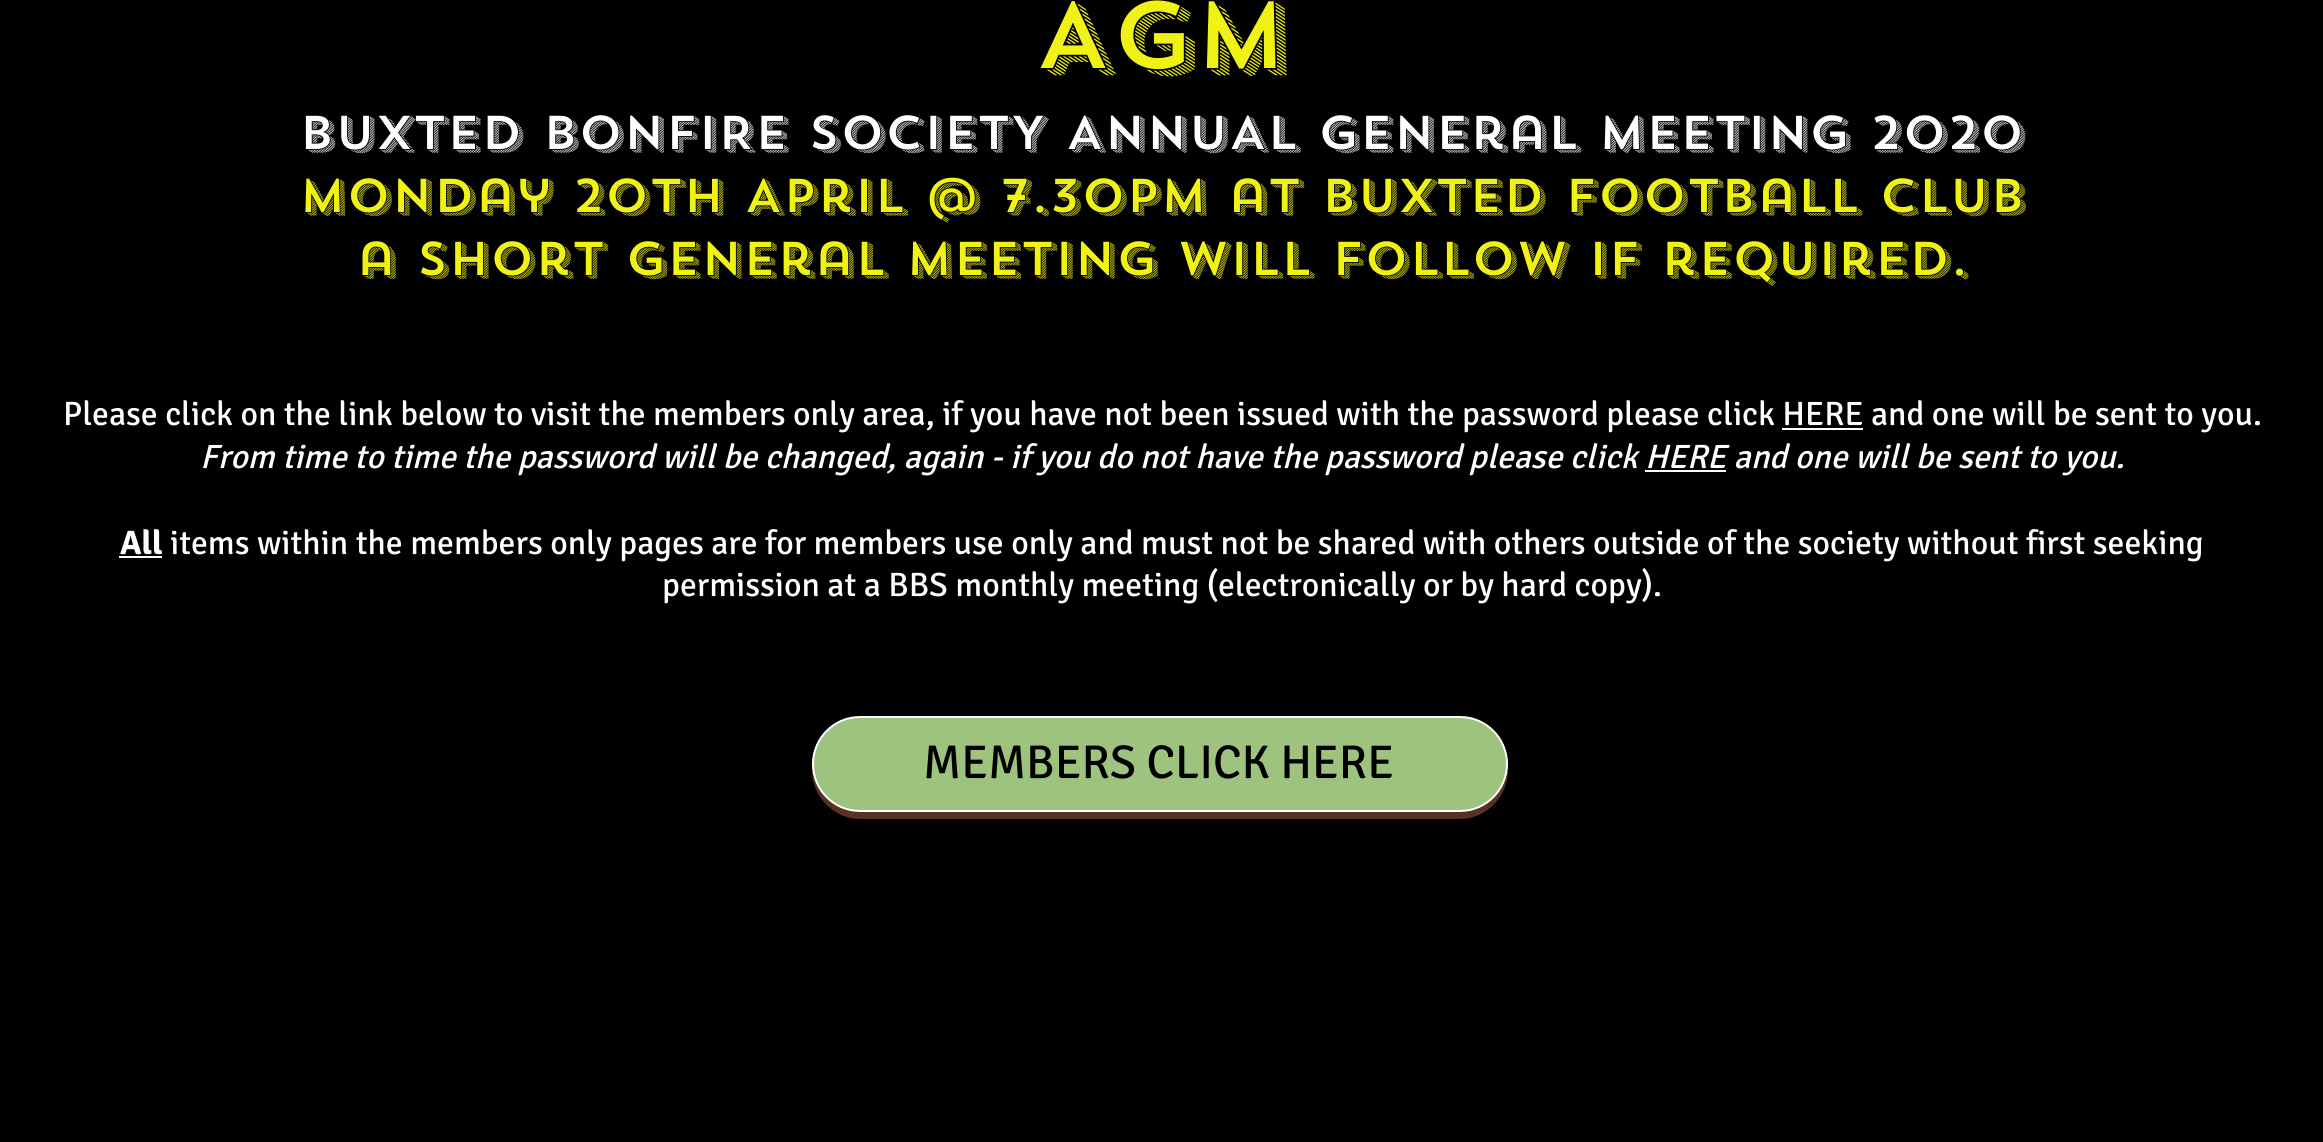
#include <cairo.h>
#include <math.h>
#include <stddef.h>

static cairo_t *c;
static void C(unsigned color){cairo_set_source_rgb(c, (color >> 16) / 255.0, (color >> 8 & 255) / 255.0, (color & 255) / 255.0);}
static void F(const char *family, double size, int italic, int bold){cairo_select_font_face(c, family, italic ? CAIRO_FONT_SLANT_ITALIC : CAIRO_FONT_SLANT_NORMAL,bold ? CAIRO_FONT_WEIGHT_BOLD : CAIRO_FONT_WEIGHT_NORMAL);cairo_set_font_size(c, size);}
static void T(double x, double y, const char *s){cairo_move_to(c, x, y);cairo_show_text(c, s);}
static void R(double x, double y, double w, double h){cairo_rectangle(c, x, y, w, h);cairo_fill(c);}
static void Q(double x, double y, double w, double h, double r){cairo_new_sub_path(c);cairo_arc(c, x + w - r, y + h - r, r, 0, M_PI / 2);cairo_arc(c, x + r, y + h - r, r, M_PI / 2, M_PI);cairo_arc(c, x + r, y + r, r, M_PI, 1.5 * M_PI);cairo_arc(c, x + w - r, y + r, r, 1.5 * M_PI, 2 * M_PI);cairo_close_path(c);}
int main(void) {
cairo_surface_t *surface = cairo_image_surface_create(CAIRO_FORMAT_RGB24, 2323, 1142);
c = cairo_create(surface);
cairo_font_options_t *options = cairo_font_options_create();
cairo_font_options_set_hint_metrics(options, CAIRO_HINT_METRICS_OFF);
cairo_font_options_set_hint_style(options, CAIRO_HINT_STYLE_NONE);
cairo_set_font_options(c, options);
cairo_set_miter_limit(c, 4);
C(0x000000);
cairo_paint(c);
F("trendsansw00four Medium",94.5,0,0);
C(0xeff213);
T(1035,68,"AGM");
F("trendsansw00four Medium",47.25,0,0);
C(0xffffff);
T(299,149,"BUXTED BONFIRE SOCIETY ANNUAL general mEETING 2020");
C(0xeff213);
T(299,212,"Monday 20th April @ 7.30pm at bUXTED Football club");
T(356,275,"a short general meeting will follow if required.");
F("Signika",33.75,0,0);
C(0xffffff);
T(63,425,"Please click on the link below to visit the members only area, if you have not been issued with the password please click HERE and one will be sent to you.");
R(1782,428,81,2);
F("Signika",33.75,1,0);
T(200,468,"From time to time the password will be changed, again - if you do not have the password please click HERE and one will be sent to you.");
R(1645,470,81,2);
F("Signika",33.75,0,1);
T(120,554,"All");
R(119,556,43,2);
F("Signika",33.75,0,0);
T(170,554,"items within the members only pages are for members use only and must not be shared with others outside of the society without first seeking");
T(662,596,"permission at a BBS monthly meeting (electronically or by hard copy).");
C(0x593122);
cairo_new_path(c);
cairo_move_to(c,812,765);
cairo_line_to(c,812,770);
cairo_curve_to(c,812,797,834,819,860,819);
cairo_line_to(c,1460,819);
cairo_curve_to(c,1486,819,1508,797,1508,770);
cairo_line_to(c,1507,764);
cairo_line_to(c,1508,764);
cairo_curve_to(c,1508,791,1486,812,1459,812);
cairo_line_to(c,861,812);
cairo_curve_to(c,834,812,813,791,812,765);
cairo_close_path(c);
cairo_fill(c);
C(0x9dc37e);
Q(813,717,694,94,47);
cairo_fill_preserve(c);
C(0xffffff);
cairo_stroke(c);
F("Signika",47.25,0,0);
C(0x000000);
T(923,778,"MEMBERS CLICK HERE");
cairo_surface_write_to_png(surface, "o.png");
cairo_font_options_destroy(options);
cairo_destroy(c);
cairo_surface_destroy(surface);
return 0;
}
